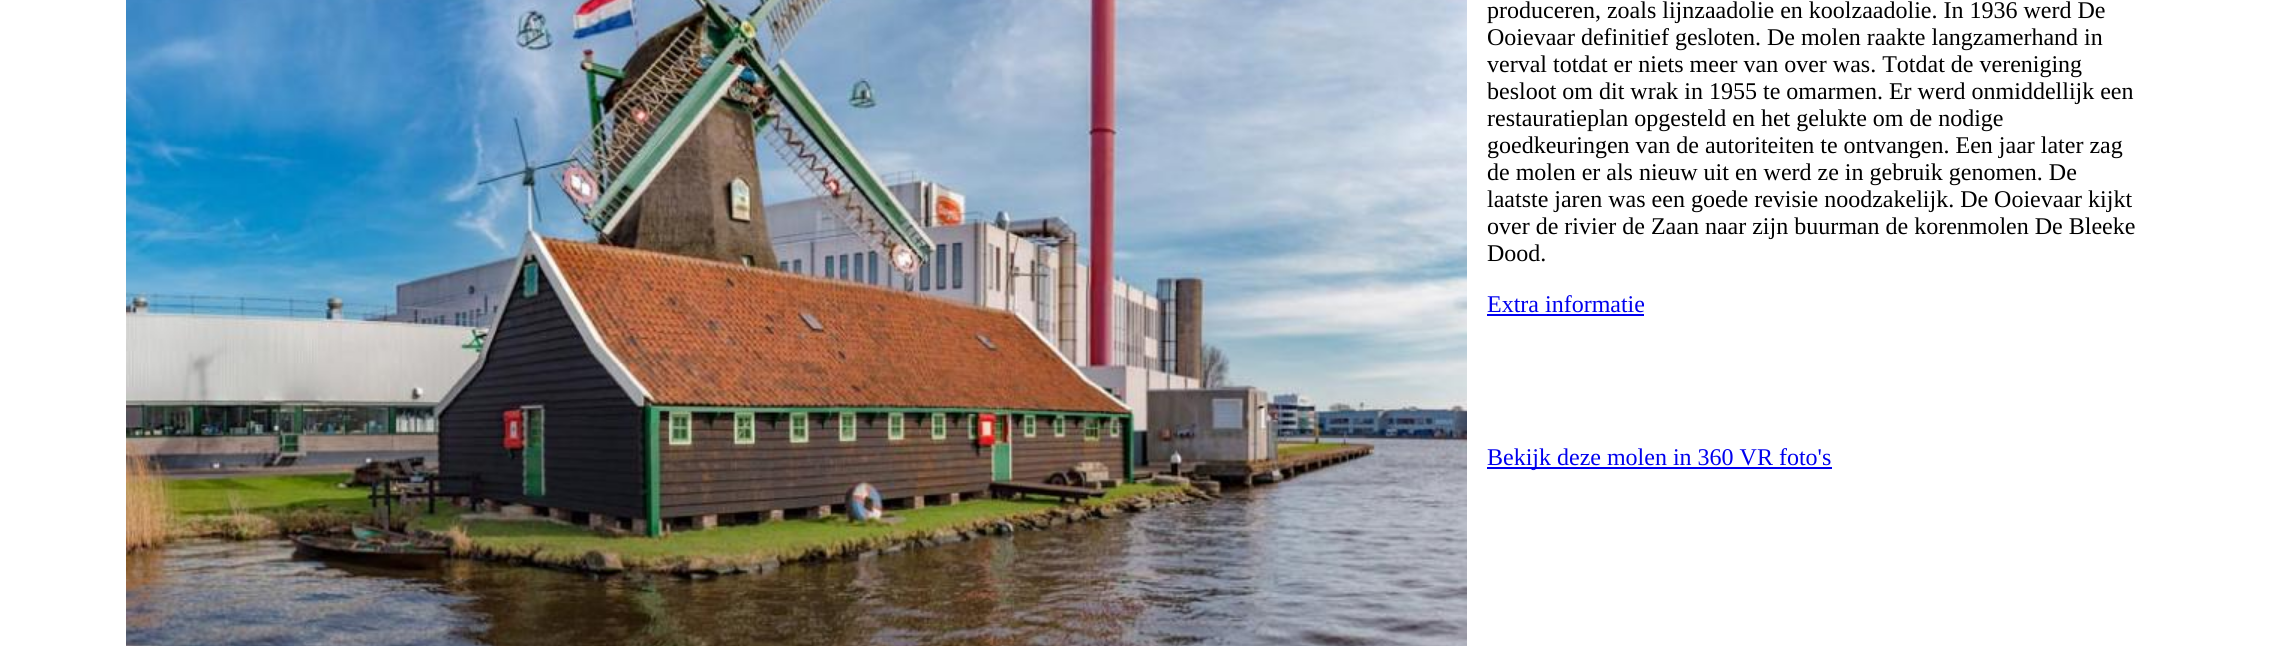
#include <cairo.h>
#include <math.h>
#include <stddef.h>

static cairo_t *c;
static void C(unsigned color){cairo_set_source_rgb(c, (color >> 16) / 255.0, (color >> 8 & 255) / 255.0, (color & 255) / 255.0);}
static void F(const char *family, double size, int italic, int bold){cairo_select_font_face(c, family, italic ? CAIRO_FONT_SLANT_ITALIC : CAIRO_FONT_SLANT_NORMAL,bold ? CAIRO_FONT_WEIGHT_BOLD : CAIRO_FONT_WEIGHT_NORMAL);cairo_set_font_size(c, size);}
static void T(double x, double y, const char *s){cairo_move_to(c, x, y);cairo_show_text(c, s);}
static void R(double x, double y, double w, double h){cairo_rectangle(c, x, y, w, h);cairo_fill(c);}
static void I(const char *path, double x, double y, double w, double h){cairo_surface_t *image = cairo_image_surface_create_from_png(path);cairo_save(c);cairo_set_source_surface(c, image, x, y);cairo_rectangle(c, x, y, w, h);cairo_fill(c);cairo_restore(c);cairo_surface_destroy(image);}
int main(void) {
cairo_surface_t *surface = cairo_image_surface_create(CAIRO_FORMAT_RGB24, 2277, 646);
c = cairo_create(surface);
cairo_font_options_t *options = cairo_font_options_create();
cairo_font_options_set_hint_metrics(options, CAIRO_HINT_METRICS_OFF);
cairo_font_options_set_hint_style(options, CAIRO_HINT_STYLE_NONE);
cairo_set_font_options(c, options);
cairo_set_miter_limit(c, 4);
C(0xffffff);
cairo_paint(c);
I("1.png",126,0,1341,646);
F("Liberation Serif",24,0,0);
C(0x000000);
T(1487,18,"produceren, zoals lijnzaadolie en koolzaadolie. In 1936 werd De");
T(1487,45,"Ooievaar definitief gesloten. De molen raakte langzamerhand in");
T(1487,72,"verval totdat er niets meer van over was. Totdat de vereniging");
T(1487,99,"besloot om dit wrak in 1955 te omarmen. Er werd onmiddellijk een");
T(1487,126,"restauratieplan opgesteld en het gelukte om de nodige");
T(1487,153,"goedkeuringen van de autoriteiten te ontvangen. Een jaar later zag");
T(1487,180,"de molen er als nieuw uit en werd ze in gebruik genomen. De");
T(1487,207,"laatste jaren was een goede revisie noodzakelijk. De Ooievaar kijkt");
T(1487,234,"over de rivier de Zaan naar zijn buurman de korenmolen De Bleeke");
T(1487,261,"Dood.");
C(0x0000ee);
T(1487,312,"Extra informatie");
R(1487,314,157,2);
R(1487,467,345,2);
T(1487,465,"Bekijk deze molen in 360 VR foto's");
cairo_surface_write_to_png(surface, "o.png");
cairo_font_options_destroy(options);
cairo_destroy(c);
cairo_surface_destroy(surface);
return 0;
}
